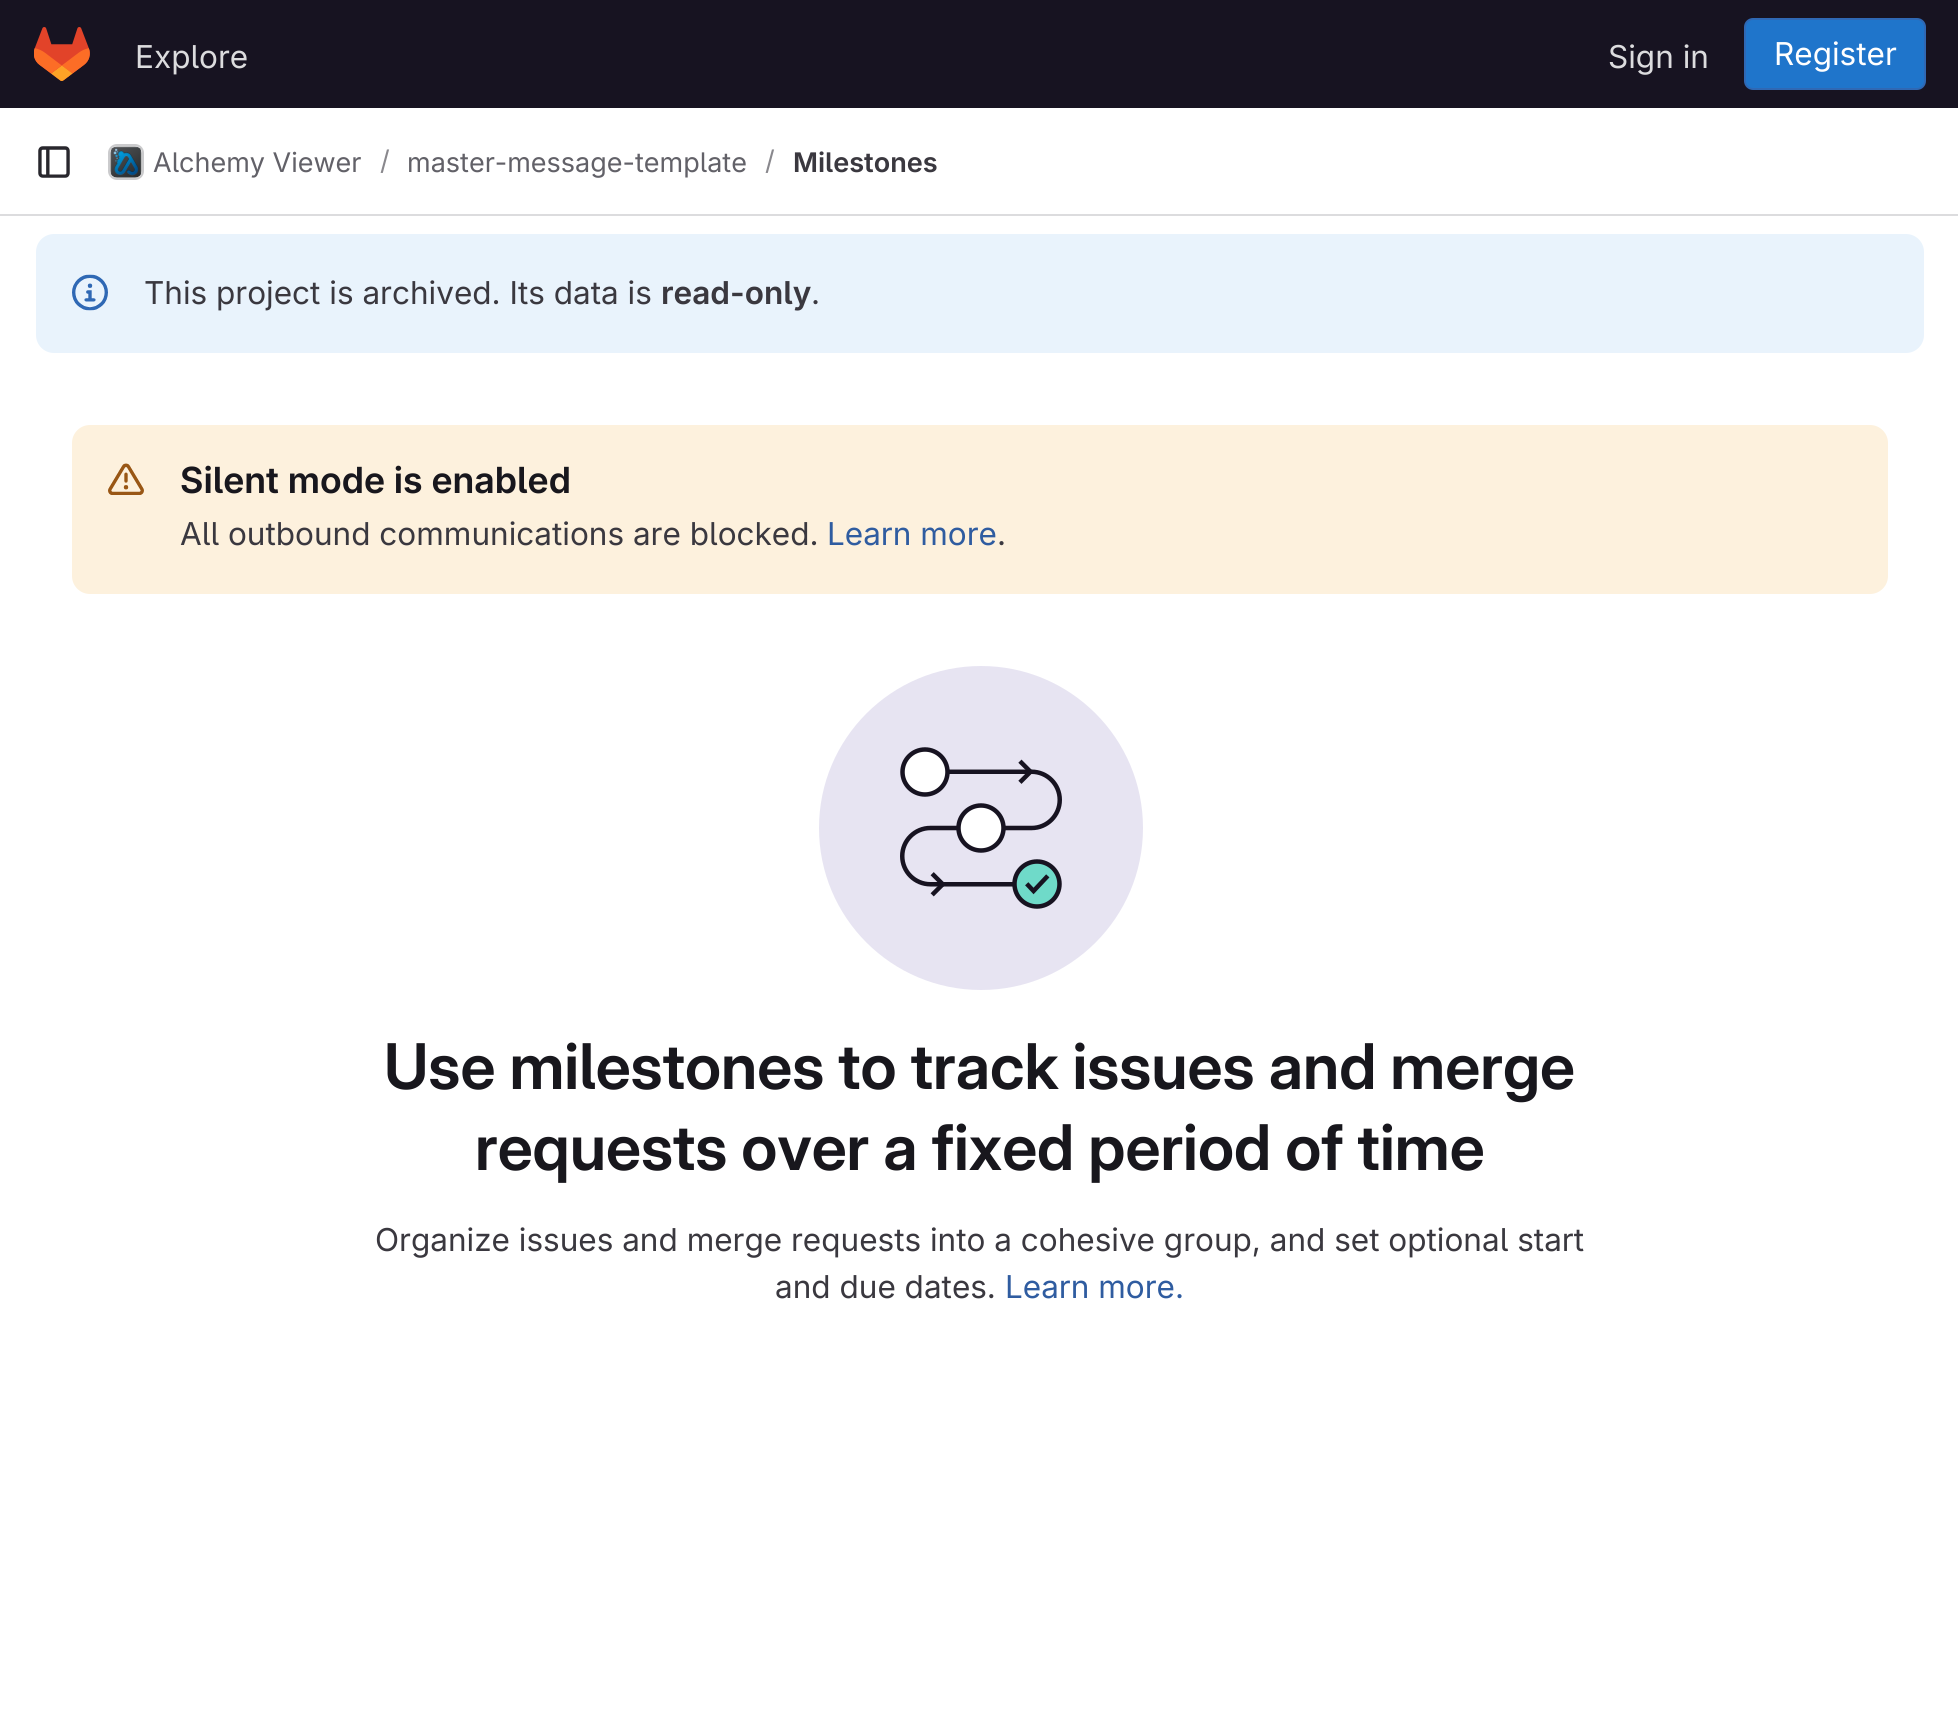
#include <cairo.h>
#include <math.h>
#include <stddef.h>

static cairo_t *c;
static void C(unsigned color){cairo_set_source_rgb(c, (color >> 16) / 255.0, (color >> 8 & 255) / 255.0, (color & 255) / 255.0);}
static void F(const char *family, double size, int italic, int bold){cairo_select_font_face(c, family, italic ? CAIRO_FONT_SLANT_ITALIC : CAIRO_FONT_SLANT_NORMAL,bold ? CAIRO_FONT_WEIGHT_BOLD : CAIRO_FONT_WEIGHT_NORMAL);cairo_set_font_size(c, size);}
static void T(double x, double y, const char *s){cairo_move_to(c, x, y);cairo_show_text(c, s);}
static void R(double x, double y, double w, double h){cairo_rectangle(c, x, y, w, h);cairo_fill(c);}
static void Q(double x, double y, double w, double h, double r){cairo_new_sub_path(c);cairo_arc(c, x + w - r, y + h - r, r, 0, M_PI / 2);cairo_arc(c, x + r, y + h - r, r, M_PI / 2, M_PI);cairo_arc(c, x + r, y + r, r, M_PI, 1.5 * M_PI);cairo_arc(c, x + w - r, y + r, r, 1.5 * M_PI, 2 * M_PI);cairo_close_path(c);}
static void I(const char *path, double x, double y, double w, double h){cairo_surface_t *image = cairo_image_surface_create_from_png(path);cairo_save(c);cairo_set_source_surface(c, image, x, y);cairo_rectangle(c, x, y, w, h);cairo_fill(c);cairo_restore(c);cairo_surface_destroy(image);}
int main(void) {
cairo_surface_t *surface = cairo_image_surface_create(CAIRO_FORMAT_RGB24, 1958, 1715);
c = cairo_create(surface);
cairo_font_options_t *options = cairo_font_options_create();
cairo_font_options_set_hint_metrics(options, CAIRO_HINT_METRICS_OFF);
cairo_font_options_set_hint_style(options, CAIRO_HINT_STYLE_NONE);
cairo_set_font_options(c, options);
cairo_set_miter_limit(c, 4);
C(0xffffff);
cairo_paint(c);
C(0x171321);
R(0,0,1958,108);
I("1.png",34,27,56,54);
F("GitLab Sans",31.5,0,0);
C(0xdcdcde);
T(135,68,"Explore");
T(1608,68,"Sign in");
C(0x1f75cb);
Q(1745,19,180,70,8);
cairo_fill_preserve(c);
C(0x2f68b4);
cairo_stroke(c);
C(0xffffff);
T(1774,65,"Register");
C(0xdcdcde);
R(0,214,1958,2);
I("2.png",38,146,32,32);
Q(109,145,34,34,8);
cairo_stroke(c);
I("3.png",110,146,32,32);
Q(109,145,34,34,8);
cairo_set_source_rgba(c,0.02,0.02,0.024,0.08);
cairo_stroke(c);
F("GitLab Sans",27,0,0);
C(0x626168);
T(153,172,"Alchemy Viewer");
C(0x89888d);
T(380,170,"/");
C(0x626168);
T(407,172,"master-message-template");
C(0x89888d);
T(765,170,"/");
F("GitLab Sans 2 SemiBold",27,0,0);
C(0x3a383f);
T(793,172,"Milestones");
C(0xe9f3fc);
Q(36,234,1888,119,18);
cairo_fill(c);
I("4.png",72,274,36,37);
F("GitLab Sans",31.5,0,0);
C(0x3a383f);
T(144,304,"This project is archived. Its data is");
F("GitLab Sans 2 SemiBold",31.5,0,0);
T(661,304,"read-only");
F("GitLab Sans",31.5,0,0);
T(811,304,".");
C(0xfdf1dd);
Q(72,425,1816,169,18);
cairo_fill(c);
I("5.png",108,463,36,32);
F("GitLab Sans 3 SemiBold",36,0,0);
C(0x18171d);
T(180,493,"Silent mode is enabled");
F("GitLab Sans",31.5,0,0);
C(0x3a383f);
T(180,545,"All outbound communications are blocked.");
C(0x2f5ca0);
T(827,545,"Learn more");
C(0x3a383f);
T(997,545,".");
I("6.png",819,666,324,324);
F("GitLab Sans SemiBold",63,0,0);
C(0x18171d);
T(384,1089,"Use milestones to track issues and merge");
T(475,1170,"requests over a fixed period of time");
F("GitLab Sans",31.5,0,0);
C(0x3a383f);
T(375,1251,"Organize issues and merge requests into a cohesive group, and set optional start");
T(775,1298,"and due dates.");
C(0x2f5ca0);
T(1005,1298,"Learn more.");
cairo_surface_write_to_png(surface, "o.png");
cairo_font_options_destroy(options);
cairo_destroy(c);
cairo_surface_destroy(surface);
return 0;
}
